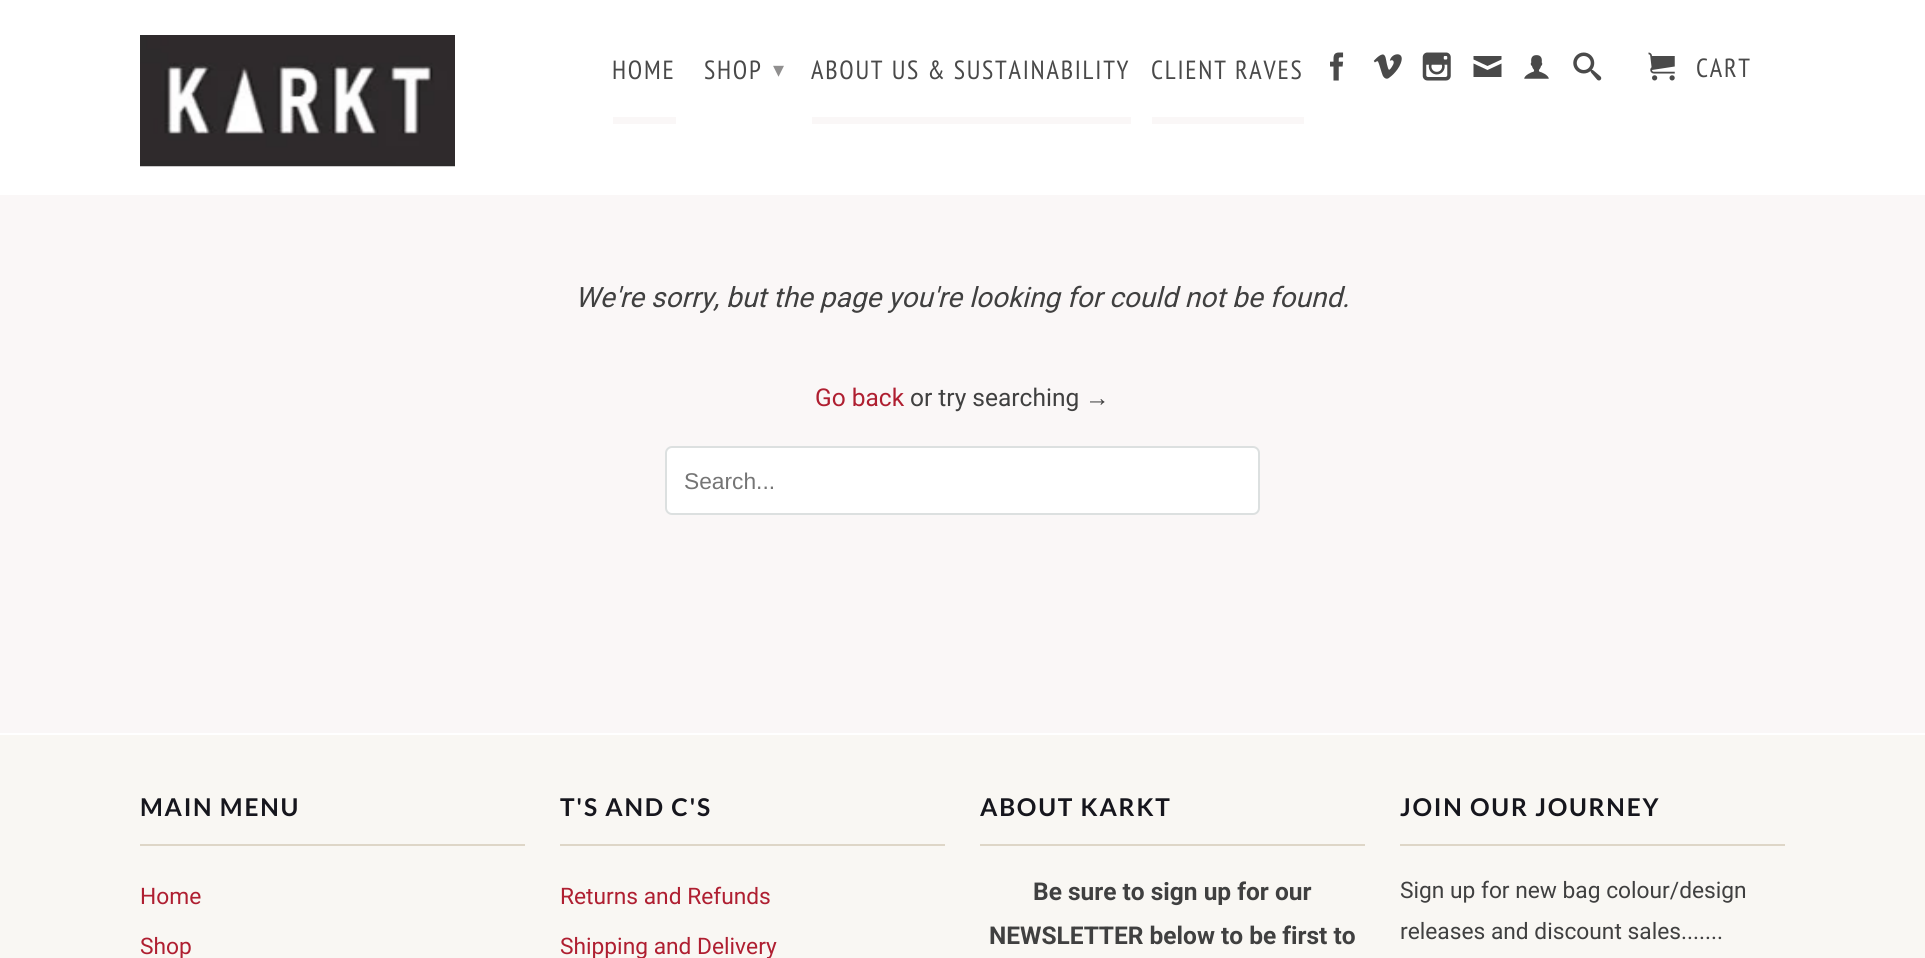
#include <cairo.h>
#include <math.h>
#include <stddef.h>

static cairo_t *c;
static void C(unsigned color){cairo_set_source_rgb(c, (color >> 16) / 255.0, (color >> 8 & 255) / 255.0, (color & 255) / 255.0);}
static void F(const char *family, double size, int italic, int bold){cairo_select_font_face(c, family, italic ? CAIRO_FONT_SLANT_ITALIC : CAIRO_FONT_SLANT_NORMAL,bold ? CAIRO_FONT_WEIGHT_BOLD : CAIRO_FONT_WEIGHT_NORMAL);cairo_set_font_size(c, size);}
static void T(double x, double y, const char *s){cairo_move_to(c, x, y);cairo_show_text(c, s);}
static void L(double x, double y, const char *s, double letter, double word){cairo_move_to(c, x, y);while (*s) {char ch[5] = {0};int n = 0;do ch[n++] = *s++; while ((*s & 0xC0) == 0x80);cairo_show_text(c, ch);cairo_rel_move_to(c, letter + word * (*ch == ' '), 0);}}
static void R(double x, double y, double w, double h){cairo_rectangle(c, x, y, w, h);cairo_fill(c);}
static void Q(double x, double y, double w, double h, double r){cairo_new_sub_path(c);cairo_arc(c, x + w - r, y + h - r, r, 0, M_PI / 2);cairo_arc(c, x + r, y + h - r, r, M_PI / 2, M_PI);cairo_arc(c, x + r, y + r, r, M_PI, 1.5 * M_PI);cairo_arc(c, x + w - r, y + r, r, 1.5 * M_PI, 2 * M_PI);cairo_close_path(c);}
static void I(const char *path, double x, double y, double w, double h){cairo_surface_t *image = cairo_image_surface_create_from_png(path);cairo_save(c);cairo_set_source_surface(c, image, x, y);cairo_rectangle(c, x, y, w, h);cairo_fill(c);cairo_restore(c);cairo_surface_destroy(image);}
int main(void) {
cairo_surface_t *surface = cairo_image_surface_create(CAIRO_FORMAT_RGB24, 1925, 958);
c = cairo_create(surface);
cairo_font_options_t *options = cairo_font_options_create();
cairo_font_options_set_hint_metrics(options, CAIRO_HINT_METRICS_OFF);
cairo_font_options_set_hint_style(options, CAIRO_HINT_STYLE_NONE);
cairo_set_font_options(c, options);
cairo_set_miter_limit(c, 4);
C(0xfaf7f7);
cairo_paint(c);
cairo_set_source_rgba(c,1,1,1,0.95);
R(0,0,1925,194);
R(0,194,1925,1);
I("1.png",140,35,315,132);
F("PT Sans Narrow",26.25,0,0);
C(0x494949);
L(612,79,"HOME",1.75,0);
C(0xfaf7f7);
R(613,117,63,7);
C(0x494949);
L(704,79,"SHOP",1.75,0);
F("DejaVu Sans",22,0,0);
C(0x908f8f);
L(773,77,"▾",1.75,0);
F("PT Sans Narrow",26.25,0,0);
C(0x494949);
L(811,79,"ABOUT US & SUSTAINABILITY",1.75,0);
C(0xfaf7f7);
R(812,117,319,7);
C(0x494949);
L(1151,79,"CLIENT RAVES",1.75,0);
C(0xfaf7f7);
R(1152,117,152,7);
I("2.png",1330,52,14,29);
I("3.png",1373,54,29,25);
I("4.png",1422,52,29,29);
C(0x494949);
cairo_new_path(c);
cairo_move_to(c,1487.5,66);
cairo_line_to(c,1473.5,59.5);
cairo_line_to(c,1473.5,56);
cairo_line_to(c,1501.5,56);
cairo_line_to(c,1501.5,59.5);
cairo_close_path(c);
cairo_move_to(c,1487.5,70);
cairo_line_to(c,1501.5,63.5);
cairo_line_to(c,1501.5,77);
cairo_line_to(c,1473.5,77);
cairo_line_to(c,1473.5,63.5);
cairo_close_path(c);
cairo_fill(c);
I("5.png",1524,55,25,24);
I("6.png",1573,52,29,29);
I("7.png",1648,52,27,29);
L(1696,77,"CART",1.75,0);
F("Roboto",28,1,0);
C(0x404040);
T(575,307,"We're sorry, but the page you're looking for could not be found.");
F("Roboto",24.5,0,0);
C(0xaf1f31);
T(815,406,"Go back");
C(0x404040);
T(910,406,"or try searching");
F("Liberation Serif",24.5,0,0);
T(1085,406,"→");
C(0xffffff);
Q(666,447,593,67,6);
cairo_fill_preserve(c);
C(0xdce0e0);
cairo_stroke(c);
F("Liberation Sans",22.75,0,0);
C(0x757575);
T(684,489,"Search...");
C(0xf9f7f3);
R(0,735,1925,223);
C(0xffffff);
R(0,733,1925,2);
C(0xded6c7);
R(140,844,385,2);
F("Lato",24.5,0,1);
C(0x16161d);
L(140,816,"MAIN MENU",1.75,0);
F("Roboto",22.75,0,0);
C(0xaf1f31);
T(140,904,"Home");
T(140,954,"Shop");
C(0xded6c7);
R(560,844,385,2);
F("Lato",24.5,0,1);
C(0x16161d);
L(560,816,"T'S AND C'S",1.75,0);
F("Roboto",22.75,0,0);
C(0xaf1f31);
T(560,904,"Returns and Refunds");
T(560,954,"Shipping and Delivery");
C(0xded6c7);
R(980,844,385,2);
F("Lato",24.5,0,1);
C(0x16161d);
L(980,816,"ABOUT KARKT",1.75,0);
F("Roboto",24.5,0,1);
C(0x404040);
T(1033,900,"Be sure to sign up for our");
T(989,944,"NEWSLETTER below to be first to");
C(0xded6c7);
R(1400,844,385,2);
F("Lato",24.5,0,1);
C(0x16161d);
L(1400,816,"JOIN OUR JOURNEY",1.75,0);
F("Roboto",22.75,0,0);
C(0x404040);
T(1400,898,"Sign up for new bag colour/design");
T(1400,939,"releases and discount sales.......");
cairo_surface_write_to_png(surface, "o.png");
cairo_font_options_destroy(options);
cairo_destroy(c);
cairo_surface_destroy(surface);
return 0;
}
